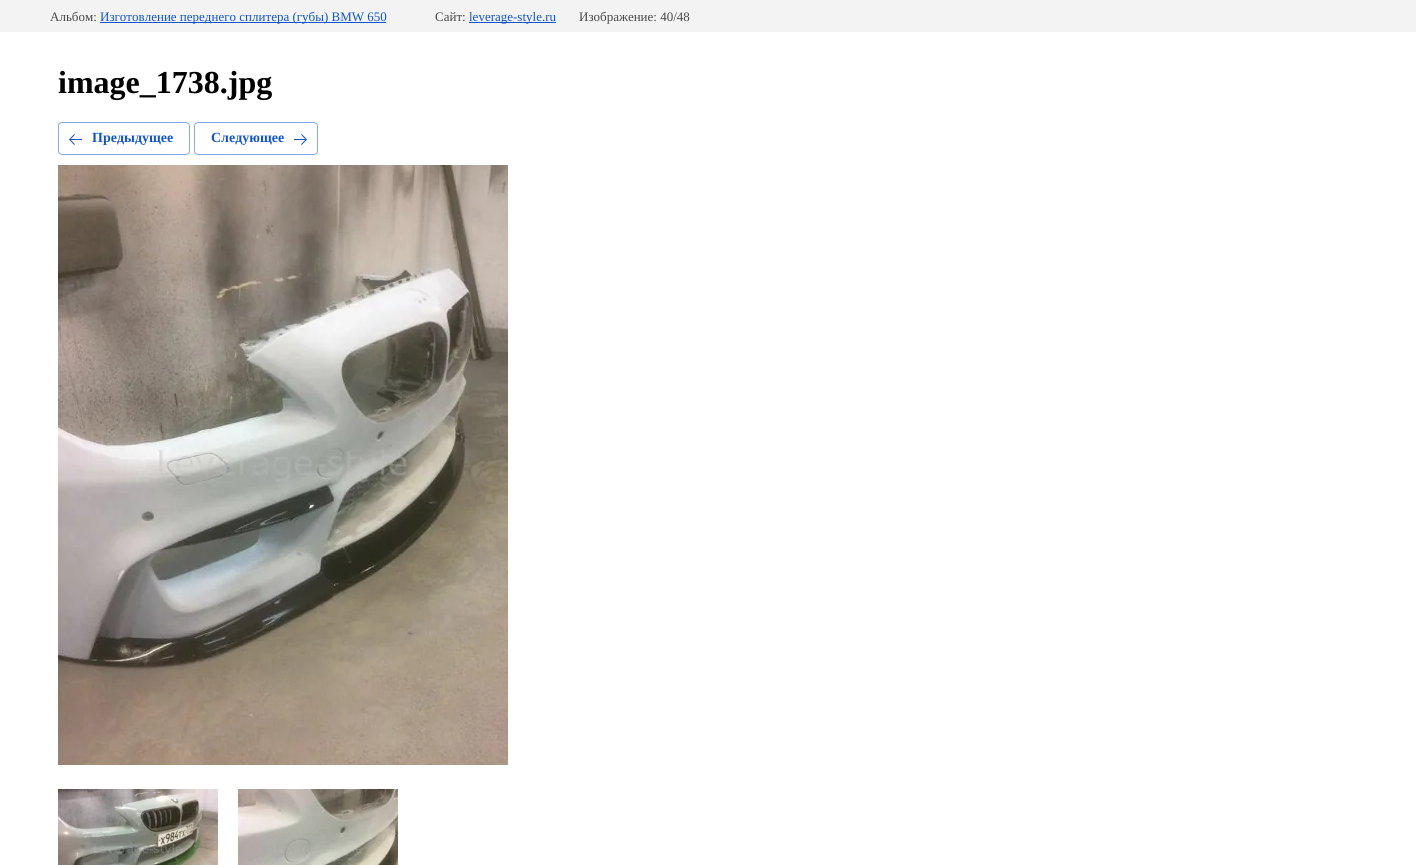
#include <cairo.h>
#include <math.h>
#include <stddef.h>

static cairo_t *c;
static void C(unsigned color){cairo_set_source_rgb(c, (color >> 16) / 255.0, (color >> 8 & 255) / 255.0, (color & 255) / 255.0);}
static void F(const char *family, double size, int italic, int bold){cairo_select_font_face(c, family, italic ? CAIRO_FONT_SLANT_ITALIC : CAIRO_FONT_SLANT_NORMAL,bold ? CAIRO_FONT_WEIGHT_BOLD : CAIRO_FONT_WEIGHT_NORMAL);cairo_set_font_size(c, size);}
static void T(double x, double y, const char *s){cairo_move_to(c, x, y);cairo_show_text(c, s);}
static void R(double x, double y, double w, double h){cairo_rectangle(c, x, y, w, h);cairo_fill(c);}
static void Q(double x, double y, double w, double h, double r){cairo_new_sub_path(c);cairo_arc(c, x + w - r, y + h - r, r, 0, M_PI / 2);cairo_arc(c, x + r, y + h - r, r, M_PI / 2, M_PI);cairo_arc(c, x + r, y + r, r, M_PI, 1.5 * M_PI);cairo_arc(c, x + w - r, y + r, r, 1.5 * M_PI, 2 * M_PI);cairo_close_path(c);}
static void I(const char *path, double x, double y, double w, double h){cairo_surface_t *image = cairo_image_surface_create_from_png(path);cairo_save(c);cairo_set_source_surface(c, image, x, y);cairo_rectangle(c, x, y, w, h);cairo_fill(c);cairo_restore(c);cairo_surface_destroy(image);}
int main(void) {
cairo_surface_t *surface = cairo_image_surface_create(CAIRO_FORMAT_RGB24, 1416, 865);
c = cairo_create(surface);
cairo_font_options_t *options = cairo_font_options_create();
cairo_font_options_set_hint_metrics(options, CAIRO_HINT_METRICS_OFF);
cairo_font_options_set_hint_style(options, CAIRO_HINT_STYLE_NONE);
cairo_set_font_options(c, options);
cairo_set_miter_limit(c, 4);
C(0xffffff);
cairo_paint(c);
C(0xf3f3f3);
R(0,0,1416,32);
F("Liberation Serif",13,0,0);
C(0x484848);
T(50,21,"Альбом:");
C(0x1155cc);
R(100,22,286,1);
T(100,21,"Изготовление переднего сплитера (губы) BMW 650");
C(0x484848);
T(435,21,"Сайт:");
C(0x1155cc);
R(469,22,87,1);
T(469,21,"leverage-style.ru");
C(0x484848);
T(579,21,"Изображение: 40/48");
F("Liberation Serif",32,0,1);
C(0x000000);
T(58,93,"image_1738.jpg");
Q(58.5,122.5,131,32,3.5);
C(0x88aae6);
cairo_set_line_width(c,1);
cairo_stroke(c);
I("1.png",69,134,13,11);
F("Liberation Serif",14,0,1);
C(0x1155cc);
T(92,142,"Предыдущее");
Q(194.5,122.5,123,32,3.5);
C(0x88aae6);
cairo_stroke(c);
C(0x1155cc);
T(211,142,"Следующее");
I("2.png",294,134,13,11);
I("3.png",58,165,450,600);
I("4.png",58,789,160,76);
I("5.png",238,789,160,76);
cairo_surface_write_to_png(surface, "o.png");
cairo_font_options_destroy(options);
cairo_destroy(c);
cairo_surface_destroy(surface);
return 0;
}
